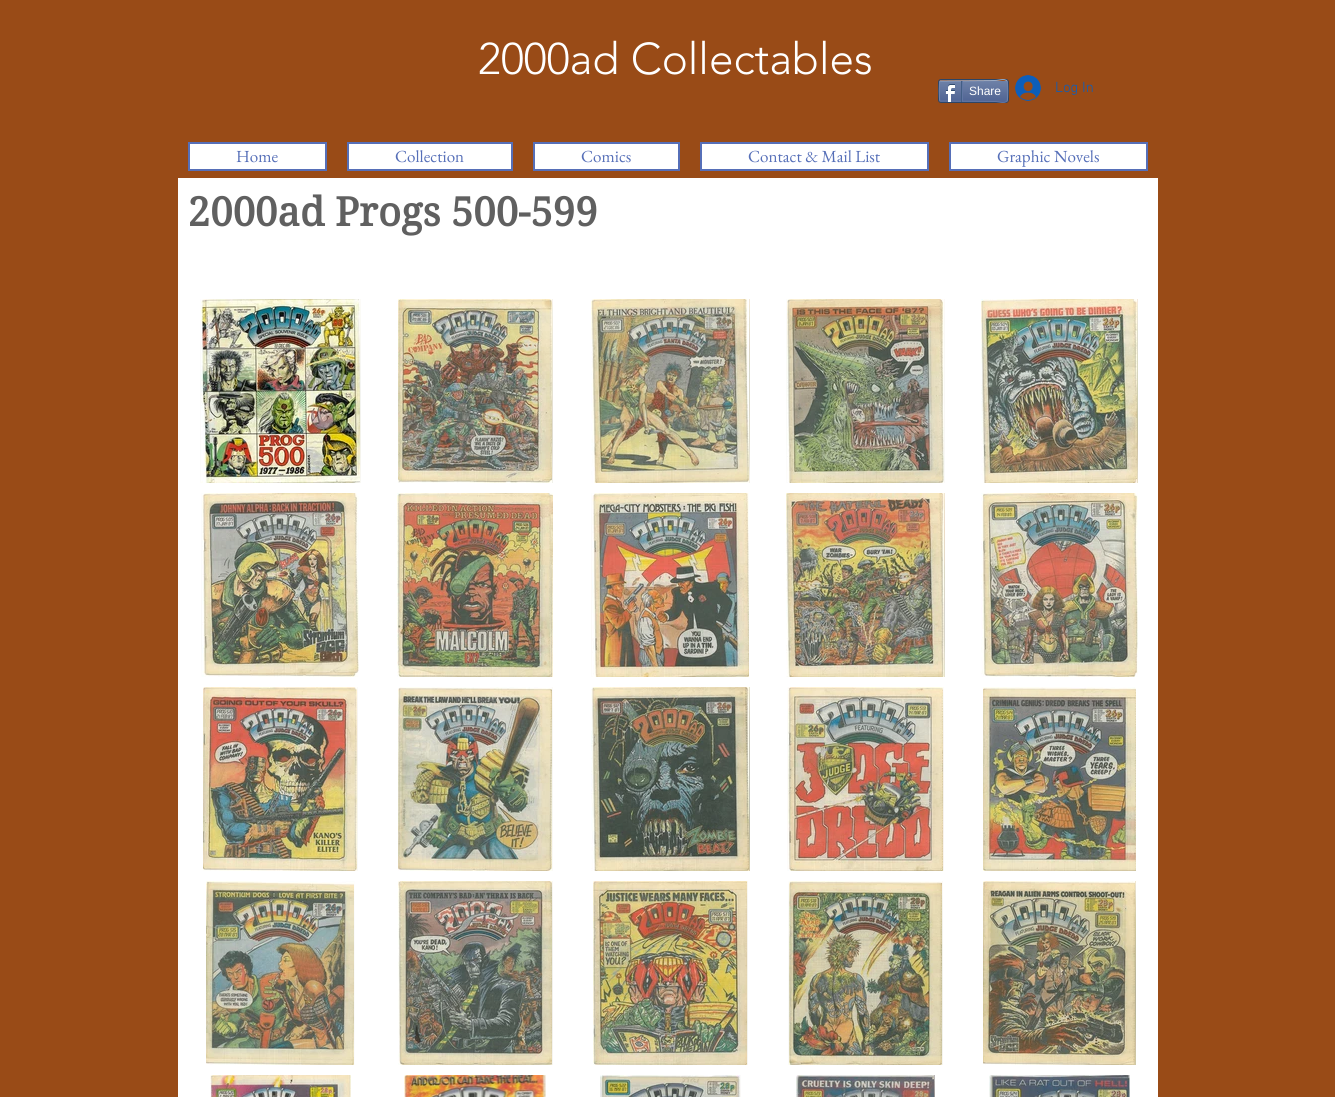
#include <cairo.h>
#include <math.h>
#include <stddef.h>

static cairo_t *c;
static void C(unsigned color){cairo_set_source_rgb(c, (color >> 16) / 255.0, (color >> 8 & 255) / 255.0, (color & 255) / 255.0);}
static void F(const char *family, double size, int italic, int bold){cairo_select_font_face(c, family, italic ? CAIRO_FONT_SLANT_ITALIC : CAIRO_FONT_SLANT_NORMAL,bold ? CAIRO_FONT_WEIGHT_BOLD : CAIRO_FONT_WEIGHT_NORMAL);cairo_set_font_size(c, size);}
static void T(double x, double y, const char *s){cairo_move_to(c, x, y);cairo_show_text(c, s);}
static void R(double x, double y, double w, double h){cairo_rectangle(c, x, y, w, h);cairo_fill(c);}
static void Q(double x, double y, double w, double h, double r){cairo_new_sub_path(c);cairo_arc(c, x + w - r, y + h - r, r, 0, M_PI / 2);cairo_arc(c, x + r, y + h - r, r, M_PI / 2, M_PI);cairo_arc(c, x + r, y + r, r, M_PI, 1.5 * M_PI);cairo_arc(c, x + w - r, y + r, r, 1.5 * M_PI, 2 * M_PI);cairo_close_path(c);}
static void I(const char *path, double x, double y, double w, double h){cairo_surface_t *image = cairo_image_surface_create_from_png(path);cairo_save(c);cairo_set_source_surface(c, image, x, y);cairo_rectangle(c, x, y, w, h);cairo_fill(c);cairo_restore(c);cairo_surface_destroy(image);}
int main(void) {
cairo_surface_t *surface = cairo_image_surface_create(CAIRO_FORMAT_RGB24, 1335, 1097);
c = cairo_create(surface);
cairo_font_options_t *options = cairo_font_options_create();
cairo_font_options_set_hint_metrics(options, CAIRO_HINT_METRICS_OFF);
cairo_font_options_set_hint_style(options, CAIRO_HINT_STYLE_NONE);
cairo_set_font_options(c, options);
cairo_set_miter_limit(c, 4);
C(0x994b17);
cairo_paint(c);
F("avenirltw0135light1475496 Light",44,0,0);
C(0xffffff);
T(478,74,"2000ad Collectables");
Q(938.5,79.5,70,23,2.5);
C(0x2d4565);
cairo_set_line_width(c,1);
cairo_stroke(c);
I("1.png",939,81,69,21);
cairo_new_path(c);
cairo_move_to(c,940,81);
cairo_line_to(c,995,80.5);
cairo_curve_to(c,999,80.5,1004,78,1007,81);
C(0x9aabc6);
cairo_stroke(c);
cairo_new_path(c);
cairo_move_to(c,1007,81);
cairo_curve_to(c,1008,81.5,1008,100.5,1007,101);
C(0x6f83ad);
cairo_stroke(c);
cairo_new_path(c);
cairo_move_to(c,1007,101);
cairo_curve_to(c,1004,104,999,101.5,995,101.5);
cairo_line_to(c,940,101);
C(0x6176a3);
cairo_stroke(c);
cairo_new_path(c);
cairo_move_to(c,940,101);
cairo_curve_to(c,939,100.5,939,81.5,940,81);
C(0x6f83ad);
cairo_stroke(c);
I("2.png",945,84,10,18);
C(0x425e85);
R(961,81,1,21);
F("Liberation Sans",12,0,0);
C(0xffffff);
T(969,95,"Share");
C(0x6176a3);
R(962,81,1,20);
I("3.png",1015,75,26,26);
F("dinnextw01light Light",15,0,0);
C(0x0d5eba);
T(1055,92,"Log In");
C(0xffffff);
cairo_rectangle(c,189,143,137,27);
cairo_fill_preserve(c);
C(0x566fb8);
cairo_set_line_width(c,2);
cairo_stroke(c);
F("EB Garamond",17,0,0);
T(236,162,"Home");
C(0xffffff);
cairo_rectangle(c,348,143,164,27);
cairo_fill_preserve(c);
C(0x566fb8);
cairo_stroke(c);
T(395,162,"Collection");
C(0xffffff);
cairo_rectangle(c,534,143,145,27);
cairo_fill_preserve(c);
C(0x566fb8);
cairo_stroke(c);
T(581,162,"Comics");
C(0xffffff);
cairo_rectangle(c,701,143,227,27);
cairo_fill_preserve(c);
C(0x566fb8);
cairo_stroke(c);
T(748,162,"Contact & Mail List");
C(0xffffff);
cairo_rectangle(c,950,143,197,27);
cairo_fill_preserve(c);
C(0x566fb8);
cairo_stroke(c);
T(997,162,"Graphic Novels");
C(0xffffff);
R(178,178,980,919);
F("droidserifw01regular",40,0,1);
C(0x606060);
T(188,226,"2000ad Progs 500-599");
I("4.png",200,299,161,184);
I("5.png",201,299,159,184);
I("6.png",398,299,154,184);
I("7.png",552,299,1,184);
I("8.png",591,299,158,184);
I("9.png",749,299,1,184);
I("10.png",786,299,159,184);
I("11.png",787,299,157,184);
I("12.png",981,299,156,184);
I("13.png",1137,299,1,184);
I("14.png",201,493,1,184);
I("15.png",202,493,157,184);
I("16.png",397,493,156,184);
I("17.png",591,493,1,184);
I("18.png",592,493,157,184);
I("19.png",786,493,158,184);
I("20.png",944,493,1,184);
I("21.png",981,493,157,184);
I("22.png",203,687,154,184);
I("23.png",357,687,1,184);
I("24.png",398,687,154,184);
I("25.png",552,687,1,184);
I("26.png",591,687,158,184);
I("27.png",749,687,1,184);
I("28.png",787,687,157,184);
I("29.png",788,687,155,184);
I("30.png",983,687,153,184);
I("31.png",206,881,148,184);
I("32.png",354,881,1,184);
I("33.png",398,881,154,184);
I("34.png",552,881,1,184);
I("35.png",593,881,154,184);
I("36.png",747,881,1,184);
I("37.png",788,881,155,184);
I("38.png",789,881,153,184);
I("39.png",983,881,152,184);
I("40.png",1135,881,1,184);
I("41.png",210,1075,141,22);
I("43.png",545,1075,1,22);
I("42.png",404,1075,142,22);
I("44.png",600,1075,140,22);
I("45.png",740,1075,1,22);
I("46.png",796,1075,138,22);
I("47.png",934,1075,1,22);
I("48.png",989,1075,141,22);
cairo_surface_write_to_png(surface, "o.png");
cairo_font_options_destroy(options);
cairo_destroy(c);
cairo_surface_destroy(surface);
return 0;
}
